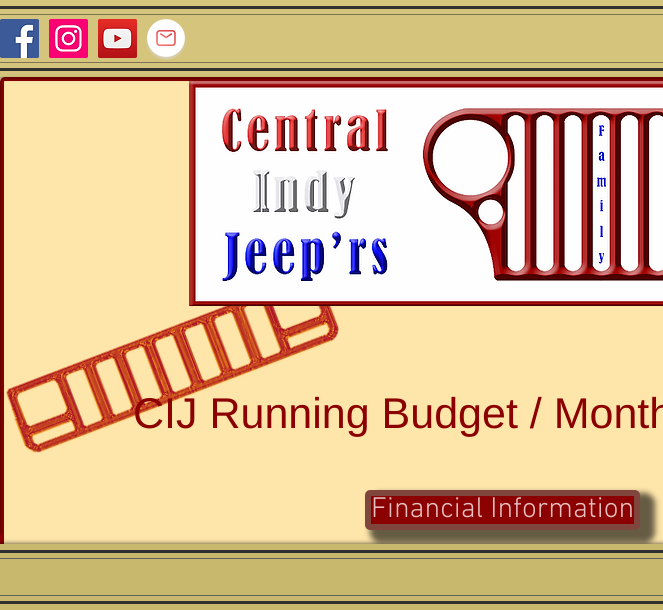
#include <cairo.h>
#include <math.h>
#include <stddef.h>

static cairo_t *c;
static void C(unsigned color){cairo_set_source_rgb(c, (color >> 16) / 255.0, (color >> 8 & 255) / 255.0, (color & 255) / 255.0);}
static void F(const char *family, double size, int italic, int bold){cairo_select_font_face(c, family, italic ? CAIRO_FONT_SLANT_ITALIC : CAIRO_FONT_SLANT_NORMAL,bold ? CAIRO_FONT_WEIGHT_BOLD : CAIRO_FONT_WEIGHT_NORMAL);cairo_set_font_size(c, size);}
static void T(double x, double y, const char *s){cairo_move_to(c, x, y);cairo_show_text(c, s);}
static void R(double x, double y, double w, double h){cairo_rectangle(c, x, y, w, h);cairo_fill(c);}
static void Q(double x, double y, double w, double h, double r){cairo_new_sub_path(c);cairo_arc(c, x + w - r, y + h - r, r, 0, M_PI / 2);cairo_arc(c, x + r, y + h - r, r, M_PI / 2, M_PI);cairo_arc(c, x + r, y + r, r, M_PI, 1.5 * M_PI);cairo_arc(c, x + w - r, y + r, r, 1.5 * M_PI, 2 * M_PI);cairo_close_path(c);}
static void S(double x, double y, double w, double h, double r, double blur, double alpha){cairo_push_group_with_content(c, CAIRO_CONTENT_ALPHA);cairo_set_operator(c, CAIRO_OPERATOR_SOURCE);for (int i = 15; i >= -15 && fmin(w, h) + blur * i / 3 > 0; i -= 2) {double e = blur * i / 6;cairo_set_source_rgba(c, 0, 0, 0, alpha * erfc((i - 1) / 8.5) / 2);Q(x - e, y - e, w + 2 * e, h + 2 * e, fmax(0, fmin(r + e + blur * .6, fmin(w, h) / 2 + e)));cairo_fill(c);}cairo_pattern_t *soft = cairo_pop_group(c);cairo_mask(c, soft);cairo_pattern_destroy(soft);}
static void I(const char *path, double x, double y, double w, double h){cairo_surface_t *image = cairo_image_surface_create_from_png(path);cairo_save(c);cairo_set_source_surface(c, image, x, y);cairo_rectangle(c, x, y, w, h);cairo_fill(c);cairo_restore(c);cairo_surface_destroy(image);}
int main(void) {
cairo_surface_t *surface = cairo_image_surface_create(CAIRO_FORMAT_RGB24, 663, 610);
c = cairo_create(surface);
cairo_font_options_t *options = cairo_font_options_create();
cairo_font_options_set_hint_metrics(options, CAIRO_HINT_METRICS_OFF);
cairo_font_options_set_hint_style(options, CAIRO_HINT_STYLE_NONE);
cairo_set_font_options(c, options);
cairo_set_miter_limit(c, 4);
C(0xfee6aa);
cairo_paint(c);
cairo_save(c);
cairo_set_fill_rule(c,CAIRO_FILL_RULE_EVEN_ODD);
cairo_new_path(c);
cairo_move_to(c,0,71);
cairo_line_to(c,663,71);
cairo_line_to(c,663,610);
cairo_line_to(c,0,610);
cairo_close_path(c);
cairo_move_to(c,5,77);
cairo_line_to(c,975,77);
cairo_curve_to(c,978,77,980,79,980,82);
cairo_line_to(c,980,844);
cairo_curve_to(c,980,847,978,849,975,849);
cairo_line_to(c,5,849);
cairo_curve_to(c,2,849,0,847,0,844);
cairo_line_to(c,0,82);
cairo_curve_to(c,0,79,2,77,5,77);
cairo_close_path(c);
cairo_clip(c);
C(0x000000);
S(0,78,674,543,5,2,.6);
cairo_restore(c);
Q(2,79,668,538,3);
C(0x8b0000);
cairo_set_line_width(c,4);
cairo_stroke(c);
I("5.png",189,81,474,225);
cairo_save(c);
cairo_rectangle(c,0,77,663,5);
cairo_clip(c);
C(0x000000);
S(0,0,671,77,0,2.5,.7);
cairo_restore(c);
I("6.png",6,306,333,147);
C(0x000000);
S(-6,82,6,451,0,2,.6);
cairo_set_source_rgba(c,0.78,0.722,0.427,0.74);
R(0,0,663,77);
C(0x303030);
R(0,6,663,3);
R(0,68,663,3);
C(0x7f7355);
R(0,14,663,1);
R(0,62,663,1);
I("1.png",0,19,39,39);
I("2.png",49,19,39,39);
I("3.png",98,19,39,39);
I("4.png",145,19,42,42);
F("Liberation Sans",43,0,0);
C(0x8b0000);
T(133,428,"CIJ Running Budget / Month");
C(0x000000);
S(370,493,285,50,10,3,.6);
C(0x8b0000);
Q(368,493,269,34,2);
cairo_fill_preserve(c);
C(0x80463e);
cairo_set_line_width(c,6);
cairo_stroke(c);
F("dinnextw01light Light",29,0,0);
C(0xe6c1c1);
T(371,517,"Financial Information");
C(0x000000);
S(0,544,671,66,0,2.5,.7);
C(0xc7b86d);
R(0,544,663,66);
C(0x303030);
R(0,550,663,3);
R(0,601,663,3);
C(0x606060);
R(0,558,663,1);
R(0,595,663,1);
cairo_surface_write_to_png(surface, "o.png");
cairo_font_options_destroy(options);
cairo_destroy(c);
cairo_surface_destroy(surface);
return 0;
}
